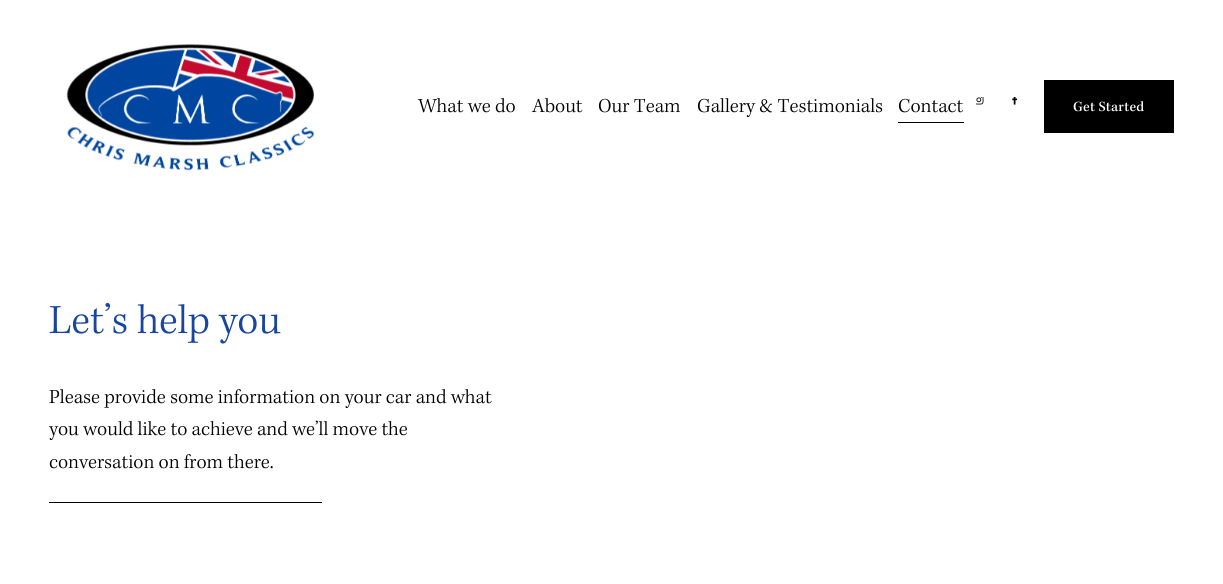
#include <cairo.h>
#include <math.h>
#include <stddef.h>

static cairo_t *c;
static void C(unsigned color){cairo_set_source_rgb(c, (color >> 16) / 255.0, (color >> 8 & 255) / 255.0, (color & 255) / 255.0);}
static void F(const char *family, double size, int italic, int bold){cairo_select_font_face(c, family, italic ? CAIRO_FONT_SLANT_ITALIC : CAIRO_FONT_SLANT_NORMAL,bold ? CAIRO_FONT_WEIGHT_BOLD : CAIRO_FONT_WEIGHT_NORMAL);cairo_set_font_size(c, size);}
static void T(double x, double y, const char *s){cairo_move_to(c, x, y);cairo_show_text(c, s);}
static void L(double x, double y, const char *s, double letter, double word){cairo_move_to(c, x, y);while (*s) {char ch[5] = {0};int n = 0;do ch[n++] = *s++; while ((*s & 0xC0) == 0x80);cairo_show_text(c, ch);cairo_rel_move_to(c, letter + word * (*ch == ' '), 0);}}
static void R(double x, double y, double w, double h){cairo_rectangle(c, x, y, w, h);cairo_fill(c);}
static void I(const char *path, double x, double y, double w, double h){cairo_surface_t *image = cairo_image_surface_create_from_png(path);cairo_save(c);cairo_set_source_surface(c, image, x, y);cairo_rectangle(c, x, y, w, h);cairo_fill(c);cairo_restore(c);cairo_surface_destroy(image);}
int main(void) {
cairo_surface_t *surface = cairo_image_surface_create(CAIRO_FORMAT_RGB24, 1223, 584);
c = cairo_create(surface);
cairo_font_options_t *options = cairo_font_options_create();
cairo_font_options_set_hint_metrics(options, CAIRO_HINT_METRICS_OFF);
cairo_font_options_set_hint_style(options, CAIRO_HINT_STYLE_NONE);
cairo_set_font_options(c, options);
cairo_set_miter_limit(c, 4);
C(0xffffff);
cairo_paint(c);
I("1.png",66,44,248,127);
F("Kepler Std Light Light",20.4,0,0);
C(0x000000);
T(418,112,"What we do");
T(532,112,"About");
T(598,112,"Our Team");
T(697,112,"Gallery & Testimonials");
R(898,122,66,1);
T(898,112,"Contact");
I("2.png",976,97,8,8);
I("3.png",1012,97,6,8);
R(1044,80,130,53);
F("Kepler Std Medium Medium",14.5,0,0);
C(0xffffff);
L(1073,111,"Get Started",.25,0);
F("Kepler Std Light Light",42.5,0,0);
C(0x18469f);
T(49,333,"Let’s help you");
F("Kepler Std Light Light",20.4,0,0);
C(0x000000);
T(49,403,"Please provide some information on your car and what");
T(49,435,"you would like to achieve and we’ll move the");
T(49,468,"conversation on from there.");
R(49,502,273,1);
cairo_surface_write_to_png(surface, "o.png");
cairo_font_options_destroy(options);
cairo_destroy(c);
cairo_surface_destroy(surface);
return 0;
}
